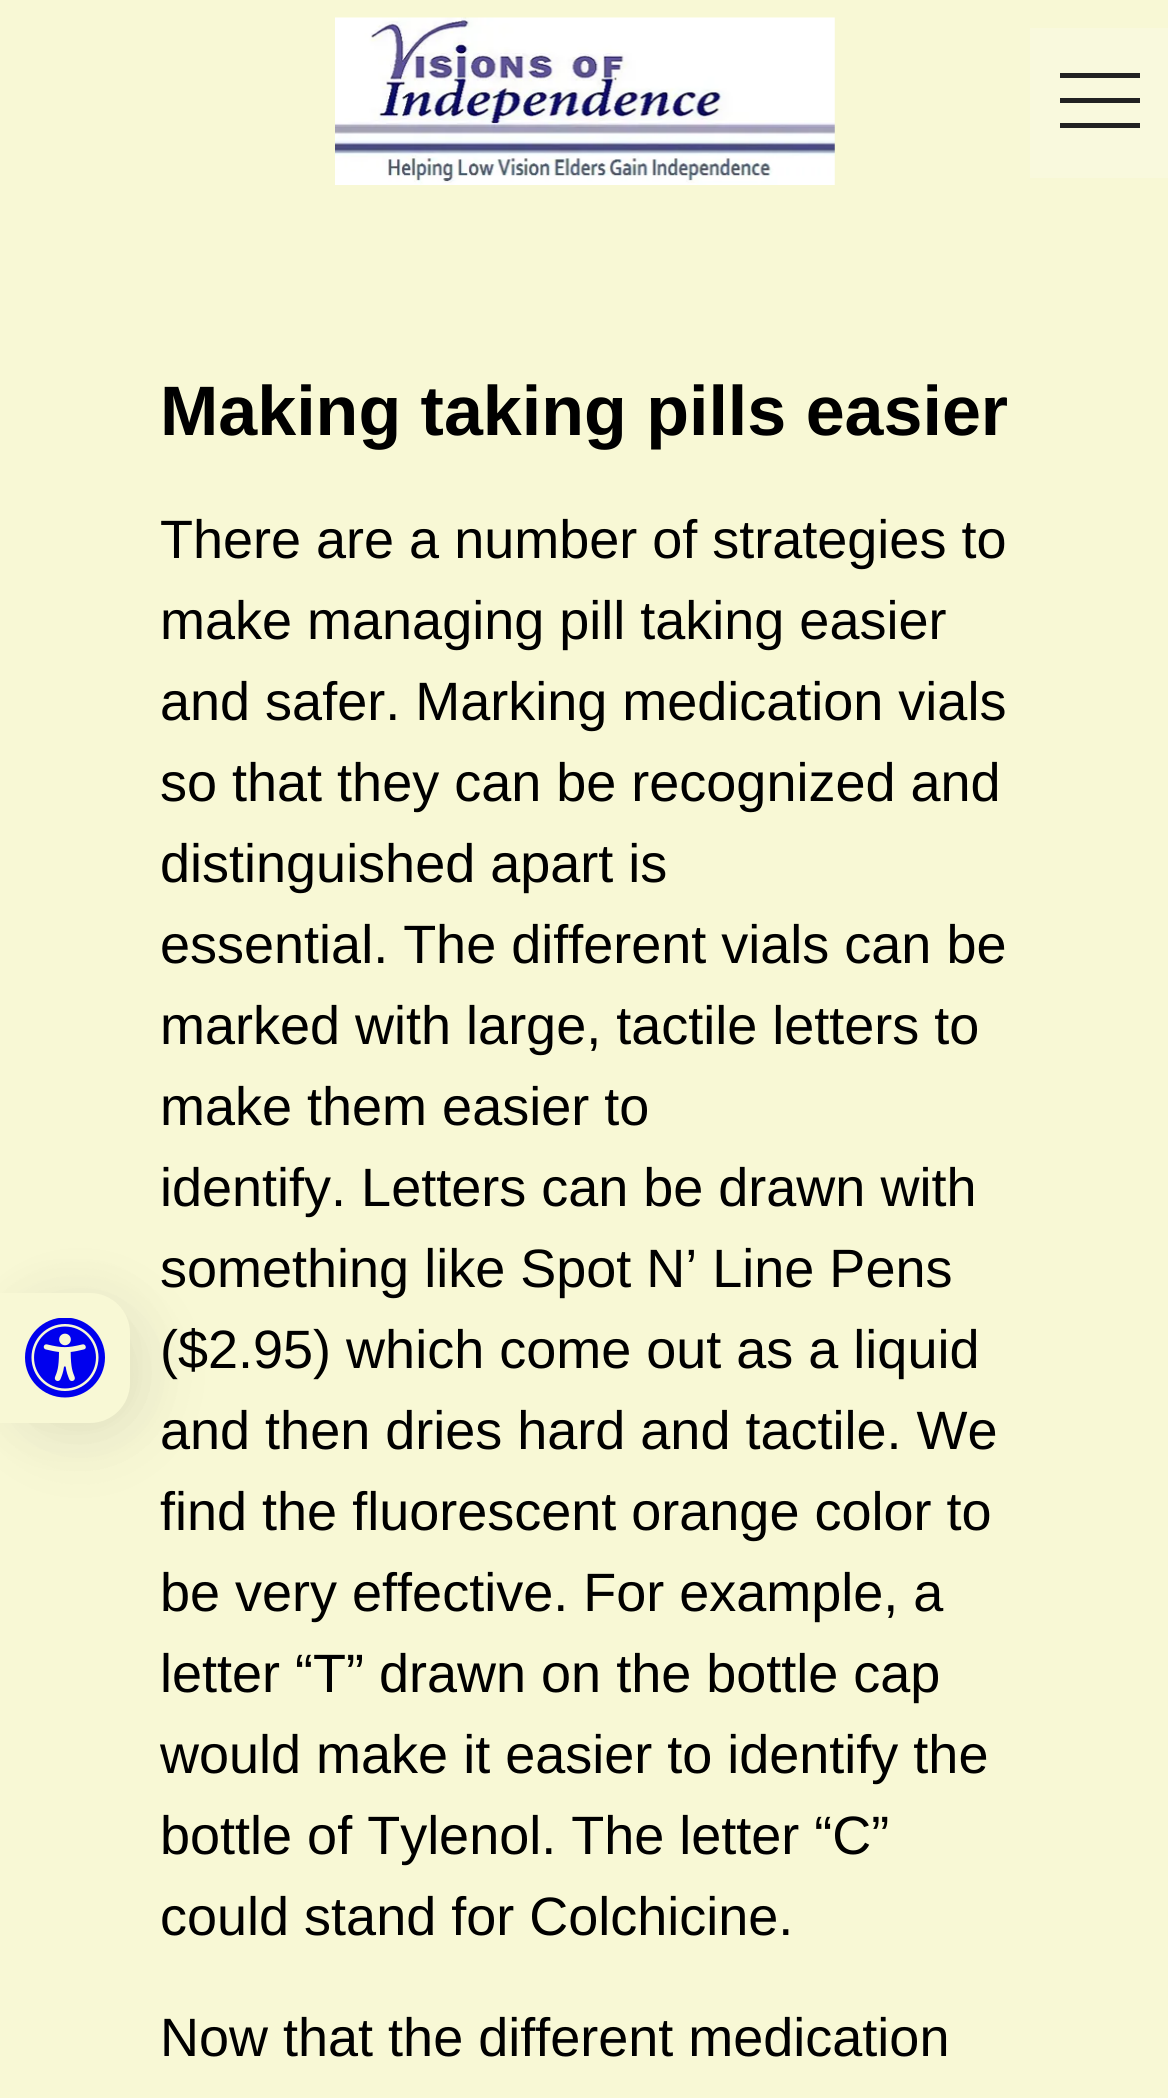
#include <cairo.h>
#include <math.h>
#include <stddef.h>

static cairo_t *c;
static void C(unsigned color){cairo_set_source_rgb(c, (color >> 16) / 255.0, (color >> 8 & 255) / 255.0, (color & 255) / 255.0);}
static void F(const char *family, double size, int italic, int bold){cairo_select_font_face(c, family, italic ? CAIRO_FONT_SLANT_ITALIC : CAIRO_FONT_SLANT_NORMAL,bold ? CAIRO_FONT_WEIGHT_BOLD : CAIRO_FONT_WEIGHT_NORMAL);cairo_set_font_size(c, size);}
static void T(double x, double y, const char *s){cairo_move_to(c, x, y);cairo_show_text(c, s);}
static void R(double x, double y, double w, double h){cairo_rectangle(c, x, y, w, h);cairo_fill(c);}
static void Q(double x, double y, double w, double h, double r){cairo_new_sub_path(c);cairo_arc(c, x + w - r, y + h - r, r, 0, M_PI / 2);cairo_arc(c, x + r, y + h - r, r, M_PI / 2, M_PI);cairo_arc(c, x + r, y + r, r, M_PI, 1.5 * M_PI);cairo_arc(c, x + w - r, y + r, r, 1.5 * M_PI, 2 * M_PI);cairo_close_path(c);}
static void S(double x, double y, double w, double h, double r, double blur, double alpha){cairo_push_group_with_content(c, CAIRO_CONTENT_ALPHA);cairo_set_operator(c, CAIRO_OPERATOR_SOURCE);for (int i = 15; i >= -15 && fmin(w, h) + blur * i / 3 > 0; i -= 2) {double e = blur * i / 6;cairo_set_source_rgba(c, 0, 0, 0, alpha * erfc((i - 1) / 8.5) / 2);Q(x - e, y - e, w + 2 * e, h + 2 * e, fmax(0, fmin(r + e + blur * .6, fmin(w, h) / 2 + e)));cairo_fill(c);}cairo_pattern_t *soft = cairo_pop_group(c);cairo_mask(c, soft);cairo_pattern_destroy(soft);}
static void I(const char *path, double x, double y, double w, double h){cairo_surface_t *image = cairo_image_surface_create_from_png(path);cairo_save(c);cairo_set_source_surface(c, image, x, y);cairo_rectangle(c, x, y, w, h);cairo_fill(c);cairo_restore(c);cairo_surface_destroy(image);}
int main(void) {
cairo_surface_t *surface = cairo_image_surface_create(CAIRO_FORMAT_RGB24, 1168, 2098);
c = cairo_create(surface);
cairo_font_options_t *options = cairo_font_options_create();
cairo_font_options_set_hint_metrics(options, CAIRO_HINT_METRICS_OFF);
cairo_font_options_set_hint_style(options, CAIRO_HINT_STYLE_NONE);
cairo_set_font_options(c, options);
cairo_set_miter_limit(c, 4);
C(0xf8f8d5);
cairo_paint(c);
C(0x000000);
S(15,1308,130,130,40,40,.06);
S(8,1300,130,130,40,27.5,.05);
C(0xf8f8d5);
cairo_new_path(c);
cairo_move_to(c,0,1293);
cairo_line_to(c,90,1293);
cairo_curve_to(c,112,1293,130,1311,130,1333);
cairo_line_to(c,130,1383);
cairo_curve_to(c,130,1405,112,1423,90,1423);
cairo_line_to(c,0,1423);
cairo_close_path(c);
cairo_fill(c);
I("1.png",25,1318,80,80);
I("2.png",335,17,500,168);
C(0xf9f9dd);
R(1030,28,138,150);
C(0x222222);
R(1060,98,80,5);
R(1060,73,80,5);
R(1060,123,80,5);
F("Liberation Sans",70,0,1);
C(0x000000);
T(160,435,"Making taking pills easier");
F("Liberation Sans",54,0,0);
T(160,558,"There are a number of strategies to");
T(160,639,"make managing pill taking easier");
T(160,720,"and safer. Marking medication vials");
T(160,801,"so that they can be recognized and");
T(160,882,"distinguished apart is");
T(160,963,"essential. The different vials can be");
T(160,1044,"marked with large, tactile letters to");
T(160,1125,"make them easier to");
T(160,1206,"identify. Letters can be drawn with");
T(160,1287,"something like Spot N’ Line Pens");
T(160,1368,"($2.95) which come out as a liquid");
T(160,1449,"and then dries hard and tactile. We");
T(160,1530,"find the fluorescent orange color to");
T(160,1611,"be very effective. For example, a");
T(160,1692,"letter “T” drawn on the bottle cap");
T(160,1773,"would make it easier to identify the");
T(160,1854,"bottle of Tylenol. The letter “C”");
T(160,1935,"could stand for Colchicine.");
T(160,2056,"Now that the different medication");
cairo_surface_write_to_png(surface, "o.png");
cairo_font_options_destroy(options);
cairo_destroy(c);
cairo_surface_destroy(surface);
return 0;
}
